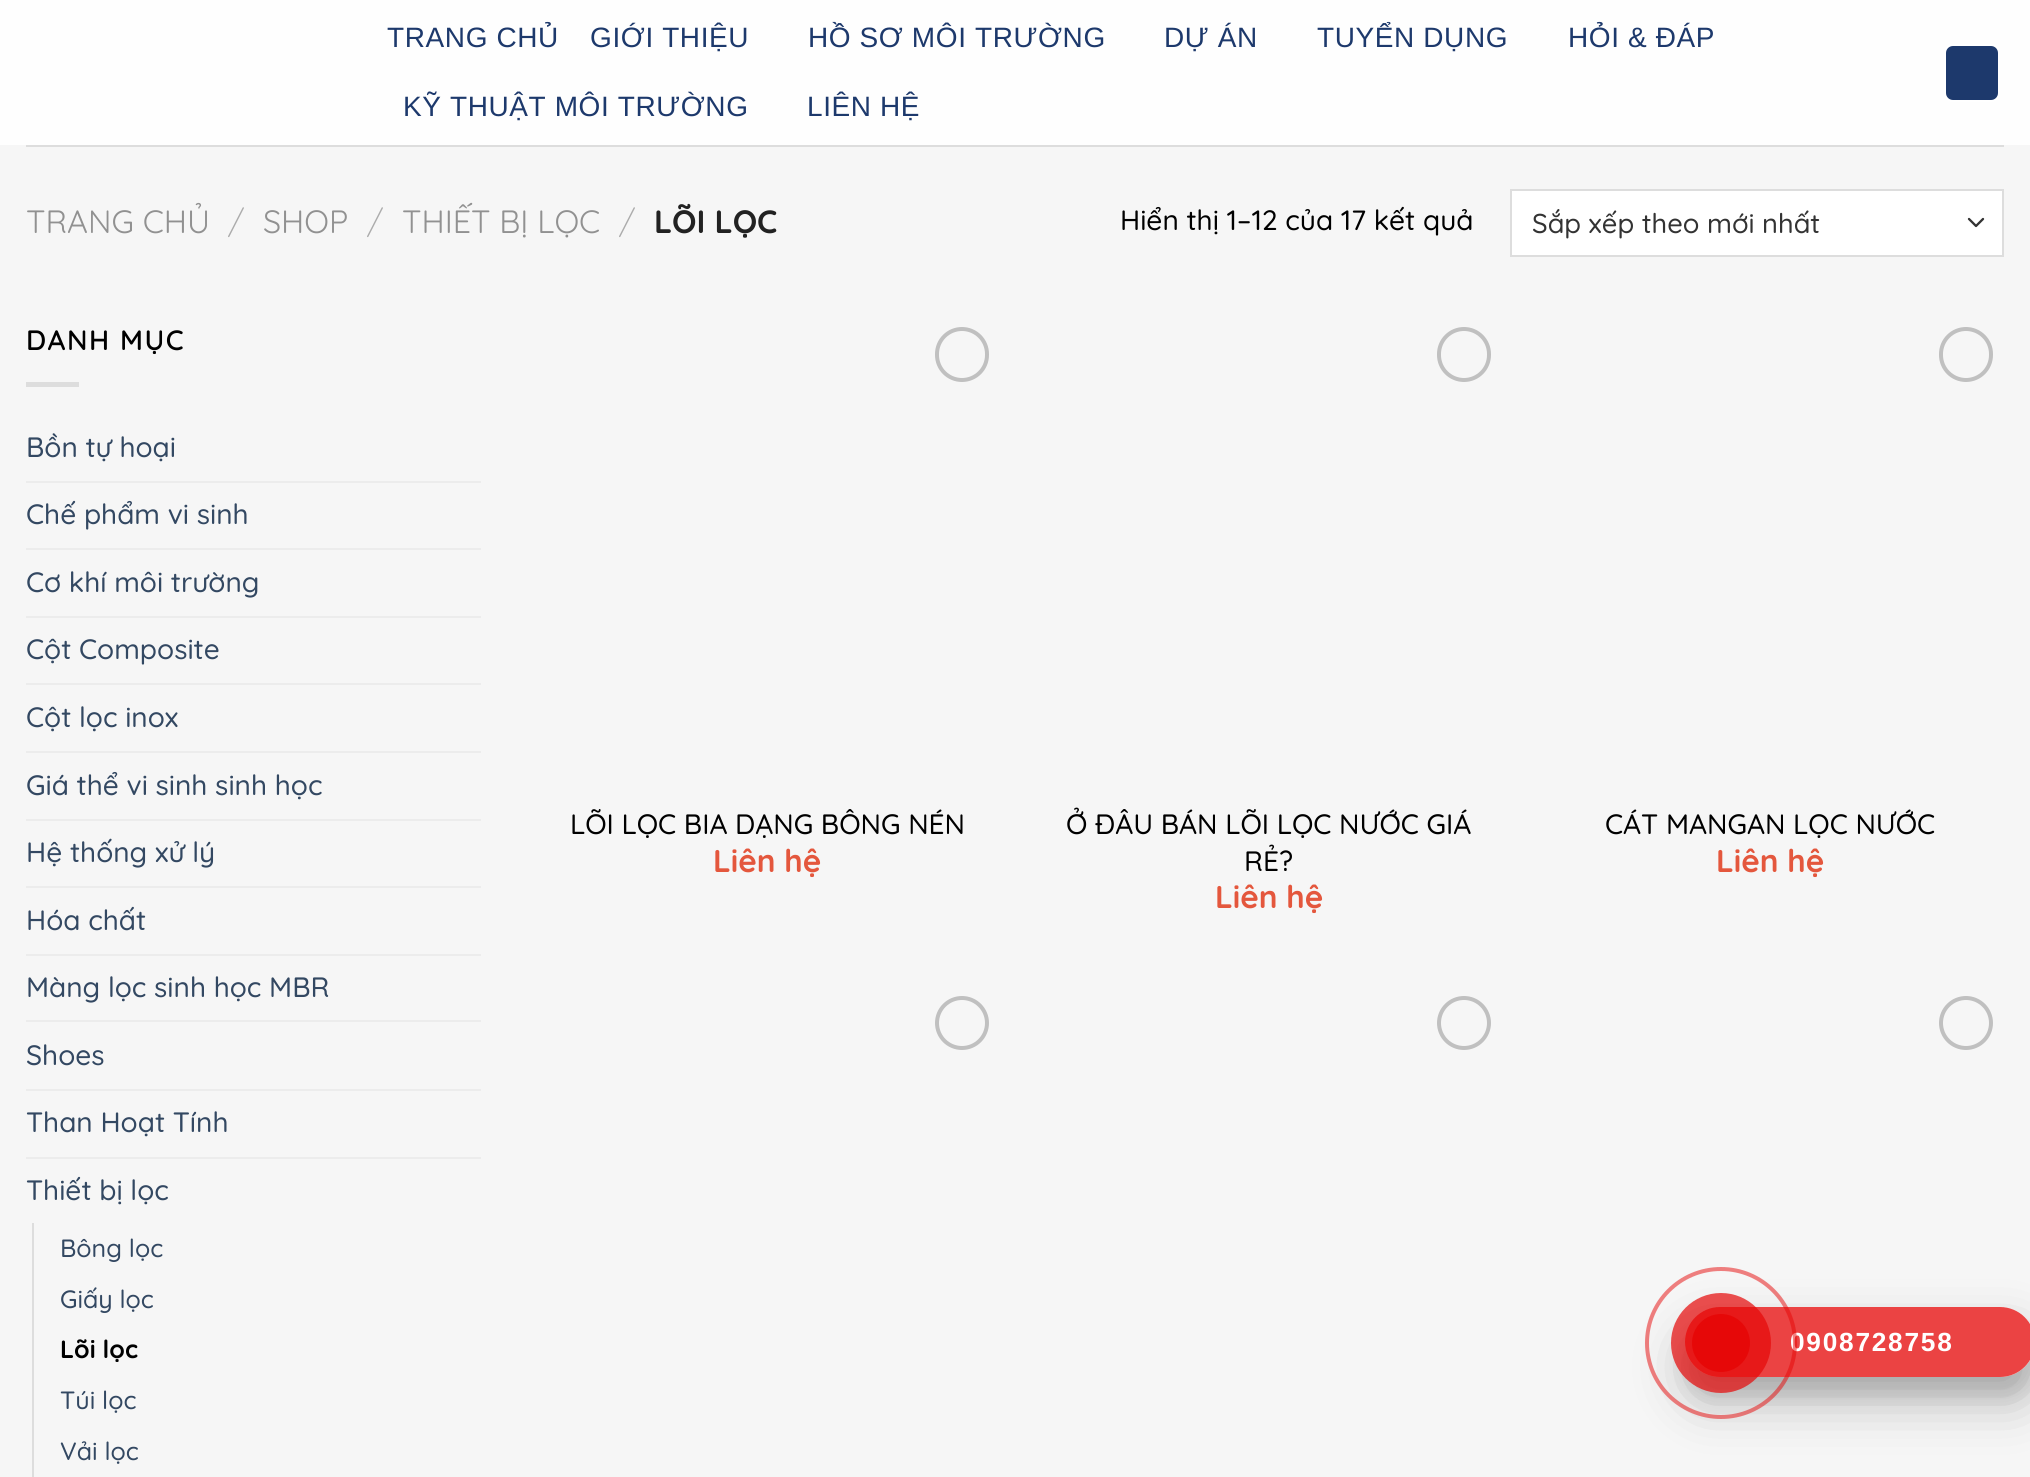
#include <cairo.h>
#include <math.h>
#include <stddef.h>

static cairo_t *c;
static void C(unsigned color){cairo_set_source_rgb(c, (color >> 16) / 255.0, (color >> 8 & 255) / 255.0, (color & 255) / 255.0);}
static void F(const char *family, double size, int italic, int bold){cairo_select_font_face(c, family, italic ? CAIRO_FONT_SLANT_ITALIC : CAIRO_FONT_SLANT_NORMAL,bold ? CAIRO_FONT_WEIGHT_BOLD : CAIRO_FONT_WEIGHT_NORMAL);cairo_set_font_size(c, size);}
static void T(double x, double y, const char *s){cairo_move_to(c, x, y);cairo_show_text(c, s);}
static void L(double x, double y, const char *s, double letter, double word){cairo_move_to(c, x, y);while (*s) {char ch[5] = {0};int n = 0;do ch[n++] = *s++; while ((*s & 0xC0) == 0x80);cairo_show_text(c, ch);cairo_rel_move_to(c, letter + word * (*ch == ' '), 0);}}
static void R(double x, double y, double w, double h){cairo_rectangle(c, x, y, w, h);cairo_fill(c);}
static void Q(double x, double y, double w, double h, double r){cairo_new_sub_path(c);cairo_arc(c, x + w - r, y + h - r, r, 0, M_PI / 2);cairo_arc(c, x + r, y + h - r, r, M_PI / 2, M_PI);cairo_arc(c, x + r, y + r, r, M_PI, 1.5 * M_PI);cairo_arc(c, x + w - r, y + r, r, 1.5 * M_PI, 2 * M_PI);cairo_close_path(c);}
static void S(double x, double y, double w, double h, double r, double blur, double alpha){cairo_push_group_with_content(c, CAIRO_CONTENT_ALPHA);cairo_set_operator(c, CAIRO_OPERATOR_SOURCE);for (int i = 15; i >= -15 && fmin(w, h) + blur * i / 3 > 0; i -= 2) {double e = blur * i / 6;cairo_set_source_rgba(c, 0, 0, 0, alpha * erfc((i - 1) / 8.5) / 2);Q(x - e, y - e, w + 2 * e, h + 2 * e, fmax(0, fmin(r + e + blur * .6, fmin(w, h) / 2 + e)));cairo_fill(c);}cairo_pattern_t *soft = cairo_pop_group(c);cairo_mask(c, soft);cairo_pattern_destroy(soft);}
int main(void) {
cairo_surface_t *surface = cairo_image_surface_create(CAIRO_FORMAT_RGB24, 2030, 1477);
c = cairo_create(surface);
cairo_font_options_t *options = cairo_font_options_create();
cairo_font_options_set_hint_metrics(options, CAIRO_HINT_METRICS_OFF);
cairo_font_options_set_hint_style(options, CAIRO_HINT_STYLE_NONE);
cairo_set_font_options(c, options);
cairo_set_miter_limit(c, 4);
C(0xf6f6f6);
cairo_paint(c);
C(0xfefefe);
R(0,0,2030,145);
F("Liberation Sans",28,0,0);
C(0x1d396c);
L(387,47,"TRANG CHỦ",.6,0);
L(590,47,"GIỚI THIỆU",.6,0);
L(808,47,"HỒ SƠ MÔI TRƯỜNG",.6,0);
L(1164,47,"DỰ ÁN",.6,0);
L(1317,47,"TUYỂN DỤNG",.6,0);
L(1568,47,"HỎI & ĐÁP",.6,0);
L(403,116,"KỸ THUẬT MÔI TRƯỜNG",.6,0);
L(807,116,"LIÊN HỆ",.6,0);
Q(1945,45,54,56,8);
cairo_fill_preserve(c);
C(0xffffff);
cairo_stroke(c);
C(0xdddddd);
R(26,145,1978,2);
F("Quicksand",32.25,0,0);
C(0x919191);
T(26,233,"TRANG CHỦ");
F("Quicksand Light",32.25,0,0);
C(0xacacac);
T(228,233,"/");
F("Quicksand",32.25,0,0);
C(0x919191);
T(263,233,"SHOP");
F("Quicksand Light",32.25,0,0);
C(0xacacac);
T(367,233,"/");
F("Quicksand",32.25,0,0);
C(0x919191);
T(402,233,"THIẾT BỊ LỌC");
F("Quicksand Light",32.25,0,0);
C(0xacacac);
T(619,233,"/");
F("Quicksand",32.25,0,1);
C(0x222222);
T(654,233,"LÕI LỌC");
F("Quicksand Medium",28,0,0);
C(0x000000);
T(1120,230,"Hiển thị 1–12 của 17 kết quả");
C(0xffffff);
R(1512,191,490,64);
cairo_new_path(c);
cairo_move_to(c,1969,219);
cairo_line_to(c,1976,226);
cairo_line_to(c,1983,219);
C(0x333333);
cairo_set_line_width(c,2.3);
cairo_set_line_cap(c,CAIRO_LINE_CAP_ROUND);
cairo_set_line_join(c,CAIRO_LINE_JOIN_ROUND);
cairo_stroke(c);
cairo_rectangle(c,1511,190,492,66);
C(0xdddddd);
cairo_set_line_width(c,2);
cairo_set_line_cap(c,CAIRO_LINE_CAP_BUTT);
cairo_set_line_join(c,CAIRO_LINE_JOIN_MITER);
cairo_stroke(c);
F("Quicksand Medium",27.25,0,0);
C(0x333333);
T(1532,233,"Sắp xếp theo mới nhất");
F("Quicksand SemiBold",28,0,0);
C(0x000000);
L(26,350,"DANH MỤC",1.5,0);
C(0xdddddd);
R(26,382,53,5);
F("Quicksand Medium",28,0,0);
C(0x334862);
T(26,457,"Bồn tự hoại");
C(0xececec);
R(26,481,455,2);
C(0x334862);
T(26,524,"Chế phẩm vi sinh");
C(0xececec);
R(26,548,455,2);
C(0x334862);
T(26,592,"Cơ khí môi trường");
C(0xececec);
R(26,616,455,2);
C(0x334862);
T(26,659,"Cột Composite");
C(0xececec);
R(26,683,455,2);
C(0x334862);
T(26,727,"Cột lọc inox");
C(0xececec);
R(26,751,455,2);
C(0x334862);
T(26,795,"Giá thể vi sinh sinh học");
C(0xececec);
R(26,819,455,2);
C(0x334862);
T(26,862,"Hệ thống xử lý");
C(0xececec);
R(26,886,455,2);
C(0x334862);
T(26,930,"Hóa chất");
C(0xececec);
R(26,954,455,2);
C(0x334862);
T(26,997,"Màng lọc sinh học MBR");
C(0xececec);
R(26,1020,455,2);
C(0x334862);
T(26,1065,"Shoes");
C(0xececec);
R(26,1089,455,2);
C(0x334862);
T(26,1132,"Than Hoạt Tính");
C(0xececec);
R(26,1157,455,2);
C(0x334862);
T(26,1200,"Thiết bị lọc");
C(0xdddddd);
R(32,1223,2,254);
F("Quicksand Medium",25,0,0);
C(0x334862);
T(60,1257,"Bông lọc");
T(60,1308,"Giấy lọc");
F("Quicksand",25,0,1);
C(0x000000);
T(60,1358,"Lõi lọc");
F("Quicksand Medium",25,0,0);
C(0x334862);
T(60,1409,"Túi lọc");
T(60,1460,"Vải lọc");
Q(937,329,50,51,25);
C(0xc0c0c0);
cairo_set_line_width(c,4);
cairo_stroke(c);
F("Quicksand Medium",28,0,0);
C(0x000000);
T(570,834,"LÕI LỌC BIA DẠNG BÔNG NÉN");
F("Quicksand",31.5,0,1);
C(0xe4573d);
T(713,872,"Liên hệ");
Q(1439,329,50,51,25);
C(0xc0c0c0);
cairo_stroke(c);
F("Quicksand Medium",28,0,0);
C(0x000000);
T(1066,834,"Ở ĐÂU BÁN LÕI LỌC NƯỚC GIÁ");
T(1244,871,"RẺ?");
F("Quicksand",31.5,0,1);
C(0xe4573d);
T(1215,908,"Liên hệ");
Q(1941,329,50,51,25);
C(0xc0c0c0);
cairo_stroke(c);
F("Quicksand Medium",28,0,0);
C(0x000000);
T(1605,834,"CÁT MANGAN LỌC NƯỚC");
F("Quicksand",31.5,0,1);
C(0xe4573d);
T(1716,872,"Liên hệ");
cairo_new_path(c);
cairo_arc(c,962,1023,25,0,2 * M_PI);
C(0xc0c0c0);
cairo_stroke(c);
cairo_arc(c,1464,1023,25,0,2 * M_PI);
cairo_stroke(c);
cairo_arc(c,1966,1023,25,0,2 * M_PI);
cairo_stroke(c);
cairo_save(c);
cairo_set_fill_rule(c,CAIRO_FILL_RULE_EVEN_ODD);
cairo_new_path(c);
cairo_move_to(c,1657,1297);
cairo_line_to(c,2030,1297);
cairo_line_to(c,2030,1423);
cairo_line_to(c,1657,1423);
cairo_close_path(c);
cairo_move_to(c,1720,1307);
cairo_line_to(c,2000,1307);
cairo_curve_to(c,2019.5,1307,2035,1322.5,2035,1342);
cairo_curve_to(c,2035,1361.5,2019.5,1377,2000,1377);
cairo_line_to(c,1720,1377);
cairo_curve_to(c,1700.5,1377,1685,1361.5,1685,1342);
cairo_curve_to(c,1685,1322.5,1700.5,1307,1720,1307);
cairo_close_path(c);
cairo_clip(c);
C(0x000000);
S(1685,1325,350,70,35,9,.1);
cairo_restore(c);
cairo_save(c);
cairo_set_fill_rule(c,CAIRO_FILL_RULE_EVEN_ODD);
cairo_new_path(c);
cairo_move_to(c,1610,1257);
cairo_line_to(c,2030,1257);
cairo_line_to(c,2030,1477);
cairo_line_to(c,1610,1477);
cairo_close_path(c);
cairo_move_to(c,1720,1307);
cairo_line_to(c,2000,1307);
cairo_curve_to(c,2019.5,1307,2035,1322.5,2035,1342);
cairo_curve_to(c,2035,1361.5,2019.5,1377,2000,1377);
cairo_line_to(c,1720,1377);
cairo_curve_to(c,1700.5,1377,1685,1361.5,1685,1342);
cairo_curve_to(c,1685,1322.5,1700.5,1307,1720,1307);
cairo_close_path(c);
cairo_clip(c);
C(0x000000);
S(1685,1332,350,70,35,24.5,.25);
cairo_restore(c);
cairo_set_source_rgba(c,0.902,0.031,0.031,0.75);
Q(1685,1307,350,70,35);
cairo_fill(c);
F("Liberation Sans",26.25,0,1);
C(0xffffff);
L(1790,1351,"0908728758",1.75,0);
cairo_new_path(c);
cairo_arc(c,1721,1343,74,0,2 * M_PI);
cairo_set_source_rgba(c,0.902,0.031,0.031,0.5);
cairo_stroke(c);
cairo_set_source_rgba(c,0.902,0.031,0.031,0.7);
cairo_arc(c,1721,1343,50,0,2 * M_PI);
cairo_fill(c);
C(0xe60808);
cairo_arc(c,1721,1343,29,0,2 * M_PI);
cairo_fill(c);
cairo_surface_write_to_png(surface, "o.png");
cairo_font_options_destroy(options);
cairo_destroy(c);
cairo_surface_destroy(surface);
return 0;
}
